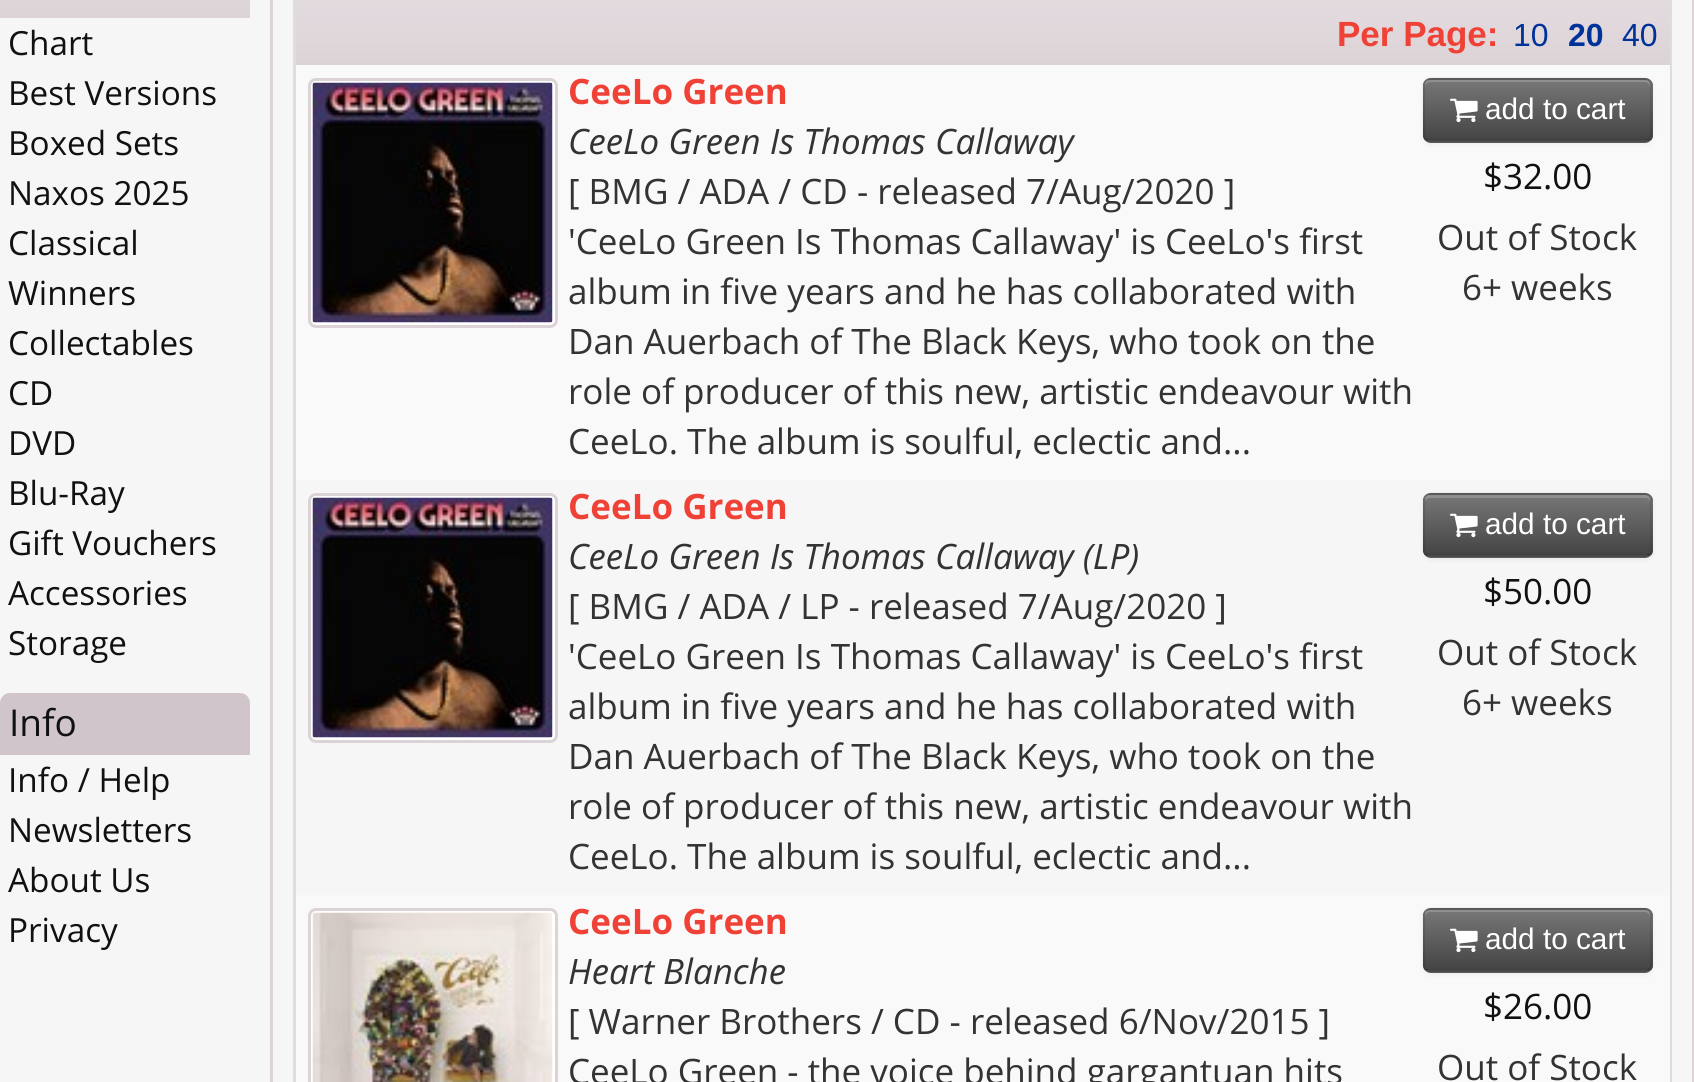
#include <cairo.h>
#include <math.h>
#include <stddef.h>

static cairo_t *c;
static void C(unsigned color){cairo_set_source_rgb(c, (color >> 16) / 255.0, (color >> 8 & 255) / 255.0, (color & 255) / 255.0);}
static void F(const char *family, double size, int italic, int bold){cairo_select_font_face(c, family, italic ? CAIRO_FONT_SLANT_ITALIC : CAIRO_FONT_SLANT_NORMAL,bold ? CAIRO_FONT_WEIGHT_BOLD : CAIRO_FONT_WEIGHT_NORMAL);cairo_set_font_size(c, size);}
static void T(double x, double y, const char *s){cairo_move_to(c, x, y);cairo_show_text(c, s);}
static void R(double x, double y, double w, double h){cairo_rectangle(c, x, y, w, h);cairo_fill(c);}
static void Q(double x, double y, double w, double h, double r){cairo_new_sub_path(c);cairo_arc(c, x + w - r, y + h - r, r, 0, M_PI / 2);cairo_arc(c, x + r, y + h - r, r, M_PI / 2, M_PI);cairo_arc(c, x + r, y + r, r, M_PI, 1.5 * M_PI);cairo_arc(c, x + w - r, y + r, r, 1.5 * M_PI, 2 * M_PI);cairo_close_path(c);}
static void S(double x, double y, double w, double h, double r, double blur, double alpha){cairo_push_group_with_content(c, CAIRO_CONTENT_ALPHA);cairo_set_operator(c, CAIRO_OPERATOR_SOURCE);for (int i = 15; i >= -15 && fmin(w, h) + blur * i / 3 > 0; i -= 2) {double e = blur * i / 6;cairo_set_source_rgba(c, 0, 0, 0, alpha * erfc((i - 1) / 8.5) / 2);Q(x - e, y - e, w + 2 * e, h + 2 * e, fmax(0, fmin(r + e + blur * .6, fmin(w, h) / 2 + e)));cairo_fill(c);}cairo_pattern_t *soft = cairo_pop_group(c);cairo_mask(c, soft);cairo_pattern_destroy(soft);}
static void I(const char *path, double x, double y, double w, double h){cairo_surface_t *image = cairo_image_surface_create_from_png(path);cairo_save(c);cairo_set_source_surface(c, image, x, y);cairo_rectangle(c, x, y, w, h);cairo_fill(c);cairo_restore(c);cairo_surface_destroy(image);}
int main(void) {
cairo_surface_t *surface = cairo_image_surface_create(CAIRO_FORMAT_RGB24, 1694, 1082);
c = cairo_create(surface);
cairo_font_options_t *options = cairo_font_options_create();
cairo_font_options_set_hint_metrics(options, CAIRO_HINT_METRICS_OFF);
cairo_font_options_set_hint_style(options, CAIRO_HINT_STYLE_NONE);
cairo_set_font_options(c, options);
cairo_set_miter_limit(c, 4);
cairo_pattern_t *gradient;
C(0xf6f6f6);
cairo_paint(c);
gradient = cairo_pattern_create_linear(125,-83,125,18);
cairo_pattern_add_color_stop_rgba(gradient,0,0.906,0.882,0.894,1);
cairo_pattern_add_color_stop_rgba(gradient,1,0.863,0.827,0.843,1);
cairo_set_source(c,gradient);
cairo_pattern_destroy(gradient);
R(0,0,250,18);
F("Open Sans",33.25,0,0);
C(0x111111);
T(8,55,"Chart");
T(8,105,"Best Versions");
T(8,155,"Boxed Sets");
T(8,205,"Naxos 2025");
T(8,255,"Classical");
T(8,305,"Winners");
T(8,355,"Collectables");
T(8,405,"CD");
T(8,455,"DVD");
T(8,505,"Blu-Ray");
T(8,555,"Gift Vouchers");
T(8,605,"Accessories");
T(8,655,"Storage");
C(0xd0c5cb);
cairo_new_path(c);
cairo_move_to(c,10,693);
cairo_line_to(c,240,693);
cairo_curve_to(c,245.5,693,250,697.5,250,703);
cairo_line_to(c,250,755);
cairo_line_to(c,0,755);
cairo_line_to(c,0,703);
cairo_curve_to(c,0,697.5,4.5,693,10,693);
cairo_close_path(c);
cairo_fill(c);
F("Open Sans",37,0,0);
C(0x111111);
T(9,736,"Info");
F("Open Sans",33.25,0,0);
T(8,792,"Info / Help");
T(8,842,"Newsletters");
T(8,892,"About Us");
T(8,942,"Privacy");
cairo_rectangle(c,271.5,-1.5,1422,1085);
C(0xdcd3d7);
cairo_set_line_width(c,3);
cairo_stroke(c);
C(0xdddddd);
cairo_set_fill_rule(c,CAIRO_FILL_RULE_EVEN_ODD);
cairo_new_path(c);
cairo_move_to(c,302,-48);
cairo_line_to(c,1662,-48);
cairo_curve_to(c,1668,-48,1672,-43,1672,-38);
cairo_line_to(c,1672,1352);
cairo_curve_to(c,1672,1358,1668,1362,1662,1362);
cairo_line_to(c,302,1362);
cairo_curve_to(c,297,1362,292,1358,292,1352);
cairo_line_to(c,292,-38);
cairo_curve_to(c,292,-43,297,-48,302,-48);
cairo_close_path(c);
cairo_move_to(c,302,-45);
cairo_line_to(c,1662,-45);
cairo_curve_to(c,1667,-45,1670,-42,1670,-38);
cairo_line_to(c,1670,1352);
cairo_curve_to(c,1670,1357,1667,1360,1662,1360);
cairo_line_to(c,302,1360);
cairo_curve_to(c,297,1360,292,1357,292,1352);
cairo_line_to(c,292,-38);
cairo_curve_to(c,292,-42,297,-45,302,-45);
cairo_close_path(c);
cairo_fill(c);
gradient = cairo_pattern_create_linear(981,-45,981,65);
cairo_pattern_add_color_stop_rgba(gradient,0,0.906,0.882,0.894,1);
cairo_pattern_add_color_stop_rgba(gradient,1,0.863,0.827,0.843,1);
cairo_set_source(c,gradient);
cairo_pattern_destroy(gradient);
R(296,0,1374,65);
C(0xdddddd);
R(293,0,3,1082);
F("Liberation Sans",35,0,1);
C(0xef4136);
T(1337,46,"Per Page:");
F("Liberation Sans",32,0,0);
C(0x003399);
T(1513,46,"10");
F("Liberation Sans",32,0,1);
T(1568,46,"20");
F("Liberation Sans",32,0,0);
T(1622,46,"40");
C(0xf9f9f9);
R(296,65,1374,415);
C(0xffffff);
Q(309.5,79.5,247,247,6.5);
cairo_fill_preserve(c);
C(0xdcd3d7);
cairo_stroke(c);
I("1.png",312,82,241,241);
F("Open Sans",35,0,1);
C(0xef4136);
T(568,104,"CeeLo Green");
F("Open Sans",35,1,0);
C(0x333333);
T(568,154,"CeeLo Green Is Thomas Callaway");
F("Open Sans",35,0,0);
T(568,204,"[ BMG / ADA / CD - released 7/Aug/2020 ]");
T(568,254,"'CeeLo Green Is Thomas Callaway' is CeeLo's first");
T(568,304,"album in five years and he has collaborated with");
T(568,354,"Dan Auerbach of The Black Keys, who took on the");
T(568,404,"role of producer of this new, artistic endeavour with");
T(568,454,"CeeLo. The album is soulful, eclectic and...");
C(0x000000);
S(1423,80,230,65,8,2.5,.05);
C(0x636363);
Q(1423,78,230,65,8);
cairo_fill(c);
cairo_save(c);
cairo_set_fill_rule(c,CAIRO_FILL_RULE_WINDING);
Q(1423,78,230,65,8);
cairo_clip(c);
gradient = cairo_pattern_create_linear(1538,80,1538,140);
cairo_pattern_add_color_stop_rgba(gradient,0,0.467,0.467,0.467,1);
cairo_pattern_add_color_stop_rgba(gradient,1,0.267,0.267,0.267,1);
cairo_set_source(c,gradient);
cairo_pattern_destroy(gradient);
R(1423,80,230,60);
cairo_restore(c);
cairo_set_source_rgba(c,1,1,1,0.2);
cairo_set_fill_rule(c,CAIRO_FILL_RULE_WINDING);
cairo_new_path(c);
cairo_move_to(c,1430,82);
cairo_line_to(c,1645,82);
cairo_curve_to(c,1648,82,1650,85,1650,88);
cairo_line_to(c,1650,85);
cairo_curve_to(c,1650,82,1648,80,1645,80);
cairo_line_to(c,1430,80);
cairo_curve_to(c,1427,80,1425,82,1425,85);
cairo_line_to(c,1425,88);
cairo_curve_to(c,1425,85,1427,82,1430,82);
cairo_close_path(c);
cairo_fill(c);
cairo_new_path(c);
cairo_move_to(c,1649.5,139.5);
cairo_curve_to(c,1648,140.5,1646.5,141,1645,141);
cairo_line_to(c,1430,141);
cairo_curve_to(c,1428.5,141,1427,140.5,1425.5,139.5);
cairo_set_source_rgba(c,0,0,0,0.25);
cairo_set_line_width(c,2.5);
cairo_stroke(c);
cairo_new_path(c);
cairo_move_to(c,1425.5,139.5);
cairo_curve_to(c,1424.5,138,1424,136.5,1424,135);
cairo_line_to(c,1424,85);
cairo_curve_to(c,1424,83.5,1424.5,82,1425.5,80.5);
cairo_curve_to(c,1427,79.5,1428.5,79,1430,79);
cairo_line_to(c,1645,79);
cairo_curve_to(c,1646.5,79,1648,79.5,1649.5,80.5);
cairo_curve_to(c,1650.5,82,1651,83.5,1651,85);
cairo_line_to(c,1651,135);
cairo_curve_to(c,1651,136.5,1650.5,138,1649.5,139.5);
cairo_set_source_rgba(c,0,0,0,0.1);
cairo_stroke(c);
I("2.png",1450,98,28,25);
F("Liberation Sans",29.75,0,0);
C(0xffffff);
T(1485,119,"add to cart");
F("Open Sans",35,0,0);
C(0x111111);
T(1483,189,"$32.00");
C(0x333333);
T(1437,250,"Out of Stock");
T(1462,300,"6+ weeks");
C(0xffffff);
Q(309.5,494.5,247,247,6.5);
cairo_fill_preserve(c);
C(0xdcd3d7);
cairo_set_line_width(c,3);
cairo_stroke(c);
I("3.png",312,497,241,241);
F("Open Sans",35,0,1);
C(0xef4136);
T(568,519,"CeeLo Green");
F("Open Sans",35,1,0);
C(0x333333);
T(568,569,"CeeLo Green Is Thomas Callaway (LP)");
F("Open Sans",35,0,0);
T(568,619,"[ BMG / ADA / LP - released 7/Aug/2020 ]");
T(568,669,"'CeeLo Green Is Thomas Callaway' is CeeLo's first");
T(568,719,"album in five years and he has collaborated with");
T(568,769,"Dan Auerbach of The Black Keys, who took on the");
T(568,819,"role of producer of this new, artistic endeavour with");
T(568,869,"CeeLo. The album is soulful, eclectic and...");
C(0x000000);
S(1423,495,230,65,8,2.5,.05);
C(0x636363);
Q(1423,493,230,65,8);
cairo_fill(c);
cairo_save(c);
Q(1423,493,230,65,8);
cairo_clip(c);
gradient = cairo_pattern_create_linear(1538,495,1538,555);
cairo_pattern_add_color_stop_rgba(gradient,0,0.467,0.467,0.467,1);
cairo_pattern_add_color_stop_rgba(gradient,1,0.267,0.267,0.267,1);
cairo_set_source(c,gradient);
cairo_pattern_destroy(gradient);
R(1423,495,230,60);
cairo_restore(c);
cairo_set_source_rgba(c,1,1,1,0.2);
cairo_new_path(c);
cairo_move_to(c,1430,498);
cairo_line_to(c,1645,498);
cairo_curve_to(c,1648,498,1650,500,1650,502);
cairo_line_to(c,1650,500);
cairo_curve_to(c,1650,497,1648,495,1645,495);
cairo_line_to(c,1430,495);
cairo_curve_to(c,1427,495,1425,497,1425,500);
cairo_line_to(c,1425,502);
cairo_curve_to(c,1425,500,1427,498,1430,498);
cairo_close_path(c);
cairo_fill(c);
cairo_new_path(c);
cairo_move_to(c,1649.5,554.5);
cairo_curve_to(c,1648,555.5,1646.5,556,1645,556);
cairo_line_to(c,1430,556);
cairo_curve_to(c,1428.5,556,1427,555.5,1425.5,554.5);
cairo_set_source_rgba(c,0,0,0,0.25);
cairo_set_line_width(c,2.5);
cairo_stroke(c);
cairo_new_path(c);
cairo_move_to(c,1425.5,554.5);
cairo_curve_to(c,1424.5,553,1424,551.5,1424,550);
cairo_line_to(c,1424,500);
cairo_curve_to(c,1424,498.5,1424.5,497,1425.5,495.5);
cairo_curve_to(c,1427,494.5,1428.5,494,1430,494);
cairo_line_to(c,1645,494);
cairo_curve_to(c,1646.5,494,1648,494.5,1649.5,495.5);
cairo_curve_to(c,1650.5,497,1651,498.5,1651,500);
cairo_line_to(c,1651,550);
cairo_curve_to(c,1651,551.5,1650.5,553,1649.5,554.5);
cairo_set_source_rgba(c,0,0,0,0.1);
cairo_stroke(c);
I("2.png",1450,513,28,25);
F("Liberation Sans",29.75,0,0);
C(0xffffff);
T(1485,534,"add to cart");
F("Open Sans",35,0,0);
C(0x111111);
T(1483,604,"$50.00");
C(0x333333);
T(1437,665,"Out of Stock");
T(1462,715,"6+ weeks");
C(0xf9f9f9);
R(296,895,1374,187);
C(0xffffff);
Q(309.5,909.5,247,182,6.5);
cairo_fill_preserve(c);
C(0xdcd3d7);
cairo_set_line_width(c,3);
cairo_stroke(c);
I("4.png",312,912,241,170);
F("Open Sans",35,0,1);
C(0xef4136);
T(568,934,"CeeLo Green");
F("Open Sans",35,1,0);
C(0x333333);
T(568,984,"Heart Blanche");
F("Open Sans",35,0,0);
T(568,1034,"[ Warner Brothers / CD - released 6/Nov/2015 ]");
T(568,1084,"CeeLo Green - the voice behind gargantuan hits");
C(0x000000);
S(1423,910,230,65,8,2.5,.05);
C(0x636363);
Q(1423,908,230,65,8);
cairo_fill(c);
cairo_save(c);
Q(1423,908,230,65,8);
cairo_clip(c);
gradient = cairo_pattern_create_linear(1538,910,1538,970);
cairo_pattern_add_color_stop_rgba(gradient,0,0.467,0.467,0.467,1);
cairo_pattern_add_color_stop_rgba(gradient,1,0.267,0.267,0.267,1);
cairo_set_source(c,gradient);
cairo_pattern_destroy(gradient);
R(1423,910,230,60);
cairo_restore(c);
cairo_set_source_rgba(c,1,1,1,0.2);
cairo_new_path(c);
cairo_move_to(c,1430,912);
cairo_line_to(c,1645,912);
cairo_curve_to(c,1648,912,1650,915,1650,918);
cairo_line_to(c,1650,915);
cairo_curve_to(c,1650,912,1648,910,1645,910);
cairo_line_to(c,1430,910);
cairo_curve_to(c,1427,910,1425,912,1425,915);
cairo_line_to(c,1425,918);
cairo_curve_to(c,1425,915,1427,912,1430,912);
cairo_close_path(c);
cairo_fill(c);
cairo_new_path(c);
cairo_move_to(c,1649.5,969.5);
cairo_curve_to(c,1648,970.5,1646.5,971,1645,971);
cairo_line_to(c,1430,971);
cairo_curve_to(c,1428.5,971,1427,970.5,1425.5,969.5);
cairo_set_source_rgba(c,0,0,0,0.25);
cairo_set_line_width(c,2.5);
cairo_stroke(c);
cairo_new_path(c);
cairo_move_to(c,1425.5,969.5);
cairo_curve_to(c,1424.5,968,1424,966.5,1424,965);
cairo_line_to(c,1424,915);
cairo_curve_to(c,1424,913.5,1424.5,912,1425.5,910.5);
cairo_curve_to(c,1427,909.5,1428.5,909,1430,909);
cairo_line_to(c,1645,909);
cairo_curve_to(c,1646.5,909,1648,909.5,1649.5,910.5);
cairo_curve_to(c,1650.5,912,1651,913.5,1651,915);
cairo_line_to(c,1651,965);
cairo_curve_to(c,1651,966.5,1650.5,968,1649.5,969.5);
cairo_set_source_rgba(c,0,0,0,0.1);
cairo_stroke(c);
I("2.png",1450,928,28,25);
F("Liberation Sans",29.75,0,0);
C(0xffffff);
T(1485,949,"add to cart");
F("Open Sans",35,0,0);
C(0x111111);
T(1483,1019,"$26.00");
C(0x333333);
T(1437,1080,"Out of Stock");
cairo_surface_write_to_png(surface, "o.png");
cairo_font_options_destroy(options);
cairo_destroy(c);
cairo_surface_destroy(surface);
return 0;
}
